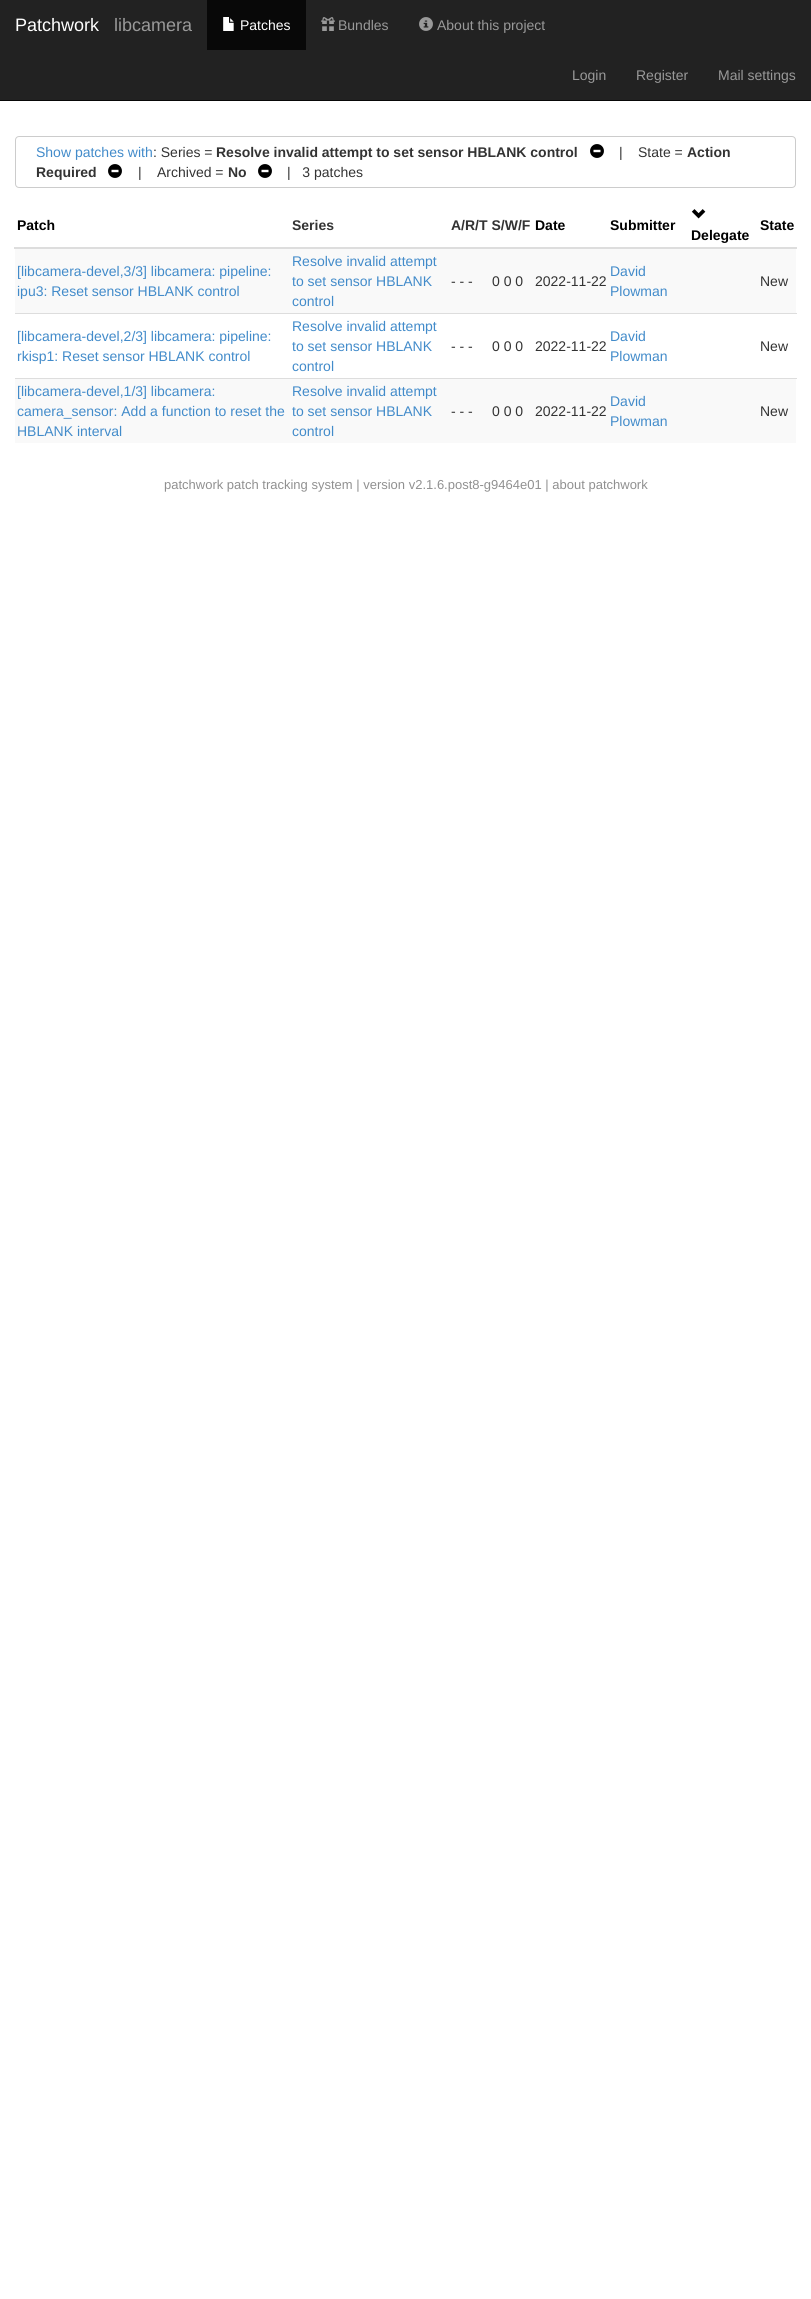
#include <cairo.h>
#include <math.h>
#include <stddef.h>

static cairo_t *c;
static void C(unsigned color){cairo_set_source_rgb(c, (color >> 16) / 255.0, (color >> 8 & 255) / 255.0, (color & 255) / 255.0);}
static void F(const char *family, double size, int italic, int bold){cairo_select_font_face(c, family, italic ? CAIRO_FONT_SLANT_ITALIC : CAIRO_FONT_SLANT_NORMAL,bold ? CAIRO_FONT_WEIGHT_BOLD : CAIRO_FONT_WEIGHT_NORMAL);cairo_set_font_size(c, size);}
static void T(double x, double y, const char *s){cairo_move_to(c, x, y);cairo_show_text(c, s);}
static void R(double x, double y, double w, double h){cairo_rectangle(c, x, y, w, h);cairo_fill(c);}
static void Q(double x, double y, double w, double h, double r){cairo_new_sub_path(c);cairo_arc(c, x + w - r, y + h - r, r, 0, M_PI / 2);cairo_arc(c, x + r, y + h - r, r, M_PI / 2, M_PI);cairo_arc(c, x + r, y + r, r, M_PI, 1.5 * M_PI);cairo_arc(c, x + w - r, y + r, r, 1.5 * M_PI, 2 * M_PI);cairo_close_path(c);}
static void I(const char *path, double x, double y, double w, double h){cairo_surface_t *image = cairo_image_surface_create_from_png(path);cairo_save(c);cairo_set_source_surface(c, image, x, y);cairo_rectangle(c, x, y, w, h);cairo_fill(c);cairo_restore(c);cairo_surface_destroy(image);}
int main(void) {
cairo_surface_t *surface = cairo_image_surface_create(CAIRO_FORMAT_RGB24, 811, 2299);
c = cairo_create(surface);
cairo_font_options_t *options = cairo_font_options_create();
cairo_font_options_set_hint_metrics(options, CAIRO_HINT_METRICS_OFF);
cairo_font_options_set_hint_style(options, CAIRO_HINT_STYLE_NONE);
cairo_set_font_options(c, options);
cairo_set_miter_limit(c, 4);
C(0xffffff);
cairo_paint(c);
C(0x222222);
R(0,0,811,100);
C(0x080808);
R(0,100,811,1);
F("Liberation Sans",18,0,0);
C(0xffffff);
T(15,31,"Patchwork");
C(0x999999);
T(114,31,"libcamera");
C(0x080808);
R(207,0,99,50);
I("1.png",223,17,11,14);
F("Liberation Sans",14,0,0);
C(0xffffff);
T(240,30,"Patches");
I("2.png",321,17,14,14);
C(0x999999);
T(338,30,"Bundles");
I("3.png",419,17,14,14);
T(437,30,"About this project");
T(572,80,"Login");
T(636,80,"Register");
T(718,80,"Mail settings");
Q(15.5,136.5,780,51,3.5);
C(0xcccccc);
cairo_set_line_width(c,1);
cairo_stroke(c);
C(0x428bca);
T(36,157,"Show patches with");
C(0x333333);
T(153,157,": Series =");
F("Liberation Sans",14,0,1);
T(216,157,"Resolve invalid attempt to set sensor HBLANK control");
I("4.png",590,144,14,14);
F("Liberation Sans",14,0,0);
T(619,157,"|");
T(638,157,"State =");
F("Liberation Sans",14,0,1);
T(687,157,"Action");
T(36,177,"Required");
I("4.png",108,164,14,14);
F("Liberation Sans",14,0,0);
T(138,177,"|");
T(157,177,"Archived =");
F("Liberation Sans",14,0,1);
T(228,177,"No");
I("4.png",258,164,14,14);
F("Liberation Sans",14,0,0);
T(287,177,"|   3 patches");
F("Liberation Sans",14,0,1);
C(0x000000);
T(17,230,"Patch");
C(0x333333);
T(292,230,"Series");
T(451,230,"A/R/T S/W/F");
C(0x000000);
T(535,230,"Date");
T(610,230,"Submitter");
C(0xdddddd);
R(14,247,783,2);
C(0x000000);
T(760,230,"State");
I("5.png",691,209,15,10);
T(691,240,"Delegate");
C(0xf9f9f9);
R(15,249,781,64);
F("Liberation Sans",14,0,0);
C(0x428bca);
T(17,276,"[libcamera-devel,3/3] libcamera: pipeline:");
T(17,296,"ipu3: Reset sensor HBLANK control");
T(292,266,"Resolve invalid attempt");
T(292,286,"to set sensor HBLANK");
T(292,306,"control");
C(0x333333);
T(451,286,"- - -");
T(492,286,"0 0 0");
T(535,286,"2022-11-22");
C(0x428bca);
T(610,276,"David");
T(610,296,"Plowman");
C(0x333333);
T(760,286,"New");
C(0x428bca);
T(17,341,"[libcamera-devel,2/3] libcamera: pipeline:");
T(17,361,"rkisp1: Reset sensor HBLANK control");
T(292,331,"Resolve invalid attempt");
T(292,351,"to set sensor HBLANK");
T(292,371,"control");
C(0x333333);
T(451,351,"- - -");
T(492,351,"0 0 0");
T(535,351,"2022-11-22");
C(0x428bca);
T(610,341,"David");
T(610,361,"Plowman");
C(0xdddddd);
R(15,313,782,1);
C(0x333333);
T(760,351,"New");
C(0xf9f9f9);
R(15,379,781,64);
C(0x428bca);
T(17,396,"[libcamera-devel,1/3] libcamera:");
T(17,416,"camera_sensor: Add a function to reset the");
T(17,436,"HBLANK interval");
T(292,396,"Resolve invalid attempt");
T(292,416,"to set sensor HBLANK");
T(292,436,"control");
C(0x333333);
T(451,416,"- - -");
T(492,416,"0 0 0");
T(535,416,"2022-11-22");
C(0x428bca);
T(610,406,"David");
T(610,426,"Plowman");
C(0xdddddd);
R(15,378,782,1);
C(0x333333);
T(760,416,"New");
F("Liberation Sans",13,0,0);
C(0x909090);
T(164,489,"patchwork patch tracking system | version v2.1.6.post8-g9464e01 | about patchwork");
cairo_surface_write_to_png(surface, "o.png");
cairo_font_options_destroy(options);
cairo_destroy(c);
cairo_surface_destroy(surface);
return 0;
}
